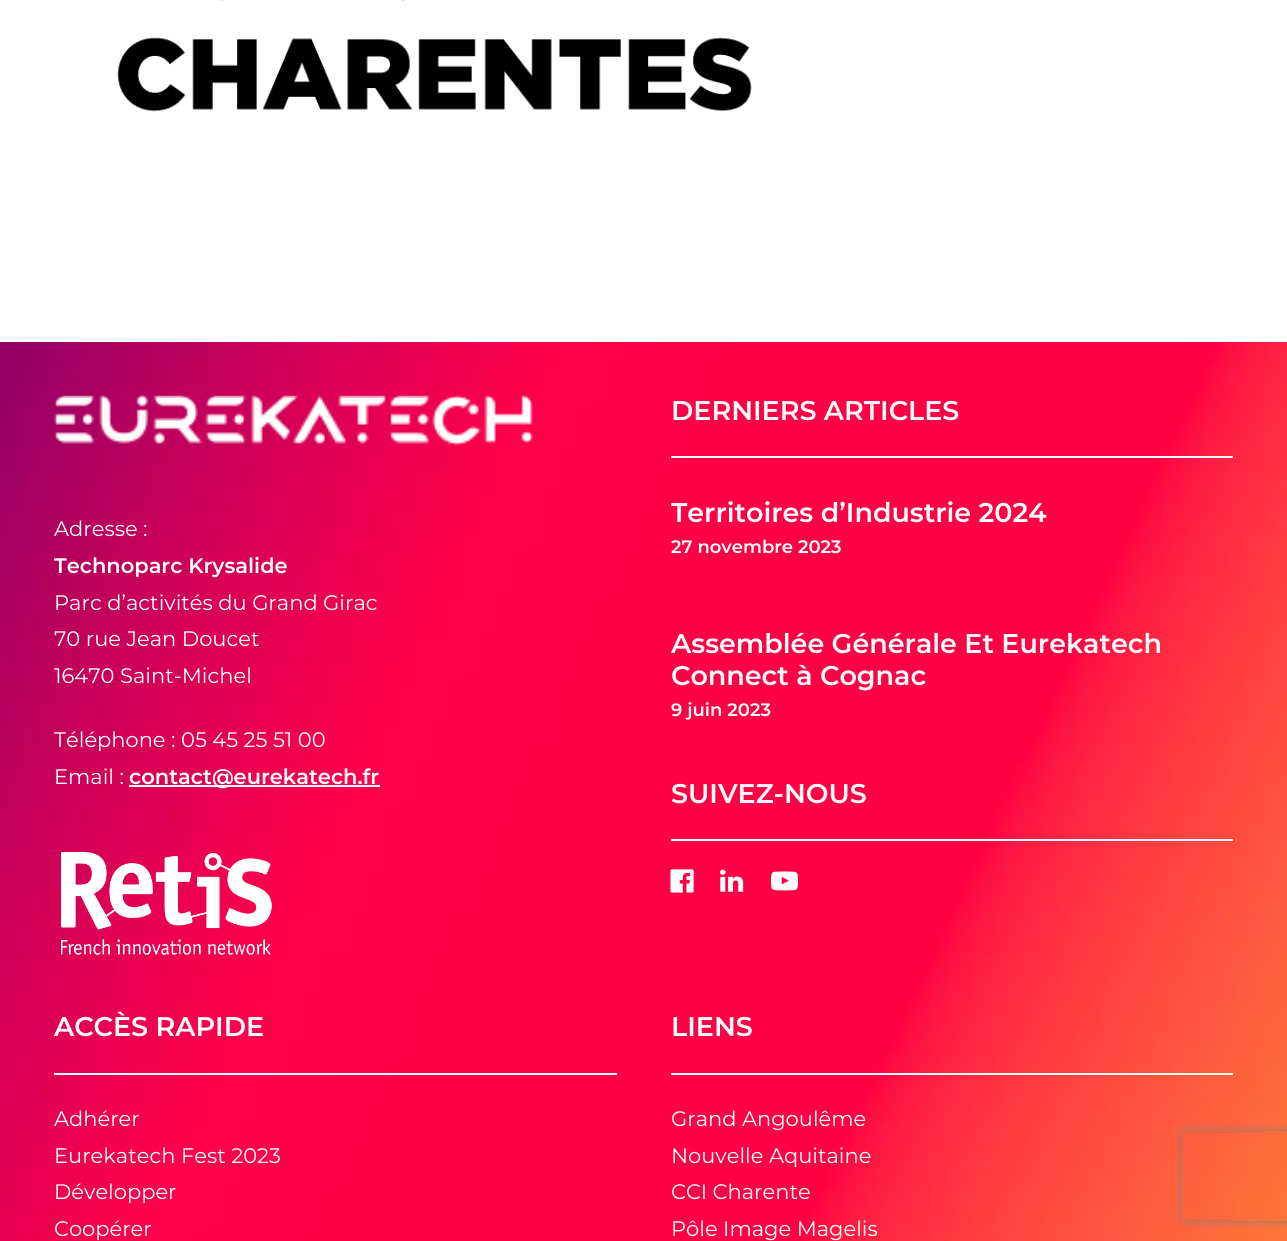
#include <cairo.h>
#include <math.h>
#include <stddef.h>

static cairo_t *c;
static void C(unsigned color){cairo_set_source_rgb(c, (color >> 16) / 255.0, (color >> 8 & 255) / 255.0, (color & 255) / 255.0);}
static void F(const char *family, double size, int italic, int bold){cairo_select_font_face(c, family, italic ? CAIRO_FONT_SLANT_ITALIC : CAIRO_FONT_SLANT_NORMAL,bold ? CAIRO_FONT_WEIGHT_BOLD : CAIRO_FONT_WEIGHT_NORMAL);cairo_set_font_size(c, size);}
static void T(double x, double y, const char *s){cairo_move_to(c, x, y);cairo_show_text(c, s);}
static void R(double x, double y, double w, double h){cairo_rectangle(c, x, y, w, h);cairo_fill(c);}
static void Q(double x, double y, double w, double h, double r){cairo_new_sub_path(c);cairo_arc(c, x + w - r, y + h - r, r, 0, M_PI / 2);cairo_arc(c, x + r, y + h - r, r, M_PI / 2, M_PI);cairo_arc(c, x + r, y + r, r, M_PI, 1.5 * M_PI);cairo_arc(c, x + w - r, y + r, r, 1.5 * M_PI, 2 * M_PI);cairo_close_path(c);}
static void S(double x, double y, double w, double h, double r, double blur, double alpha){cairo_push_group_with_content(c, CAIRO_CONTENT_ALPHA);cairo_set_operator(c, CAIRO_OPERATOR_SOURCE);for (int i = 15; i >= -15 && fmin(w, h) + blur * i / 3 > 0; i -= 2) {double e = blur * i / 6;cairo_set_source_rgba(c, 0, 0, 0, alpha * erfc((i - 1) / 8.5) / 2);Q(x - e, y - e, w + 2 * e, h + 2 * e, fmax(0, fmin(r + e + blur * .6, fmin(w, h) / 2 + e)));cairo_fill(c);}cairo_pattern_t *soft = cairo_pop_group(c);cairo_mask(c, soft);cairo_pattern_destroy(soft);}
static void I(const char *path, double x, double y, double w, double h){cairo_surface_t *image = cairo_image_surface_create_from_png(path);cairo_save(c);cairo_set_source_surface(c, image, x, y);cairo_rectangle(c, x, y, w, h);cairo_fill(c);cairo_restore(c);cairo_surface_destroy(image);}
int main(void) {
cairo_surface_t *surface = cairo_image_surface_create(CAIRO_FORMAT_RGB24, 1287, 1241);
c = cairo_create(surface);
cairo_font_options_t *options = cairo_font_options_create();
cairo_font_options_set_hint_metrics(options, CAIRO_HINT_METRICS_OFF);
cairo_font_options_set_hint_style(options, CAIRO_HINT_STYLE_NONE);
cairo_set_font_options(c, options);
cairo_set_miter_limit(c, 4);
C(0xffffff);
cairo_paint(c);
I("1.png",117,0,635,112);
I("2.png",0,342,1287,899);
I("3.png",54,395,479,51);
F("Montserrat",21,0,0);
C(0xffffff);
T(54,536,"Adresse :");
F("Montserrat SemiBold",21,0,0);
T(54,573,"Technoparc Krysalide");
F("Montserrat",21,0,0);
T(54,610,"Parc d’activités du Grand Girac");
T(54,646,"70 rue Jean Doucet");
T(54,683,"16470 Saint-Michel");
T(54,747,"Téléphone : 05 45 25 51 00");
T(54,784,"Email :");
R(129,785,251,2);
F("Montserrat SemiBold",21,0,0);
T(129,784,"contact@eurekatech.fr");
I("4.png",61,852,211,103);
F("Montserrat SemiBold",27,0,0);
T(671,420,"DERNIERS ARTICLES");
R(671,456,562,2);
T(671,522,"Territoires d’Industrie 2024");
F("Montserrat SemiBold",18,0,0);
T(671,553,"27 novembre 2023");
F("Montserrat SemiBold",27,0,0);
T(671,653,"Assemblée Générale Et Eurekatech");
T(671,685,"Connect à Cognac");
F("Montserrat SemiBold",18,0,0);
T(671,716,"9 juin 2023");
F("Montserrat SemiBold",27,0,0);
T(671,803,"SUIVEZ-NOUS");
R(671,839,562,2);
I("5.png",670,869,24,24);
I("6.png",720,869,24,23);
I("7.png",771,871,27,20);
T(54,1036,"ACCÈS RAPIDE");
R(54,1073,563,2);
F("Montserrat",21,0,0);
T(54,1126,"Adhérer");
T(54,1163,"Eurekatech Fest 2023");
T(54,1199,"Développer");
T(54,1236,"Coopérer");
F("Montserrat SemiBold",27,0,0);
T(671,1036,"LIENS");
R(671,1073,562,2);
F("Montserrat",21,0,0);
T(671,1126,"Grand Angoulême");
T(671,1163,"Nouvelle Aquitaine");
T(671,1199,"CCI Charente");
T(671,1236,"Pôle Image Magelis");
cairo_save(c);
cairo_set_fill_rule(c,CAIRO_FILL_RULE_EVEN_ODD);
cairo_new_path(c);
cairo_move_to(c,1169,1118);
cairo_line_to(c,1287,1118);
cairo_line_to(c,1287,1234);
cairo_line_to(c,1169,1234);
cairo_close_path(c);
cairo_move_to(c,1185,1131);
cairo_line_to(c,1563,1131);
cairo_curve_to(c,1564.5,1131,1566,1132.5,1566,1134);
cairo_line_to(c,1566,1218);
cairo_curve_to(c,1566,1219.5,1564.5,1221,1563,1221);
cairo_line_to(c,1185,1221);
cairo_curve_to(c,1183.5,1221,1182,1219.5,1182,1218);
cairo_line_to(c,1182,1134);
cairo_curve_to(c,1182,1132.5,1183.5,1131,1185,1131);
cairo_close_path(c);
cairo_clip(c);
C(0x808080);
S(1182,1131,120,90,3,4,1);
cairo_restore(c);
cairo_surface_write_to_png(surface, "o.png");
cairo_font_options_destroy(options);
cairo_destroy(c);
cairo_surface_destroy(surface);
return 0;
}
